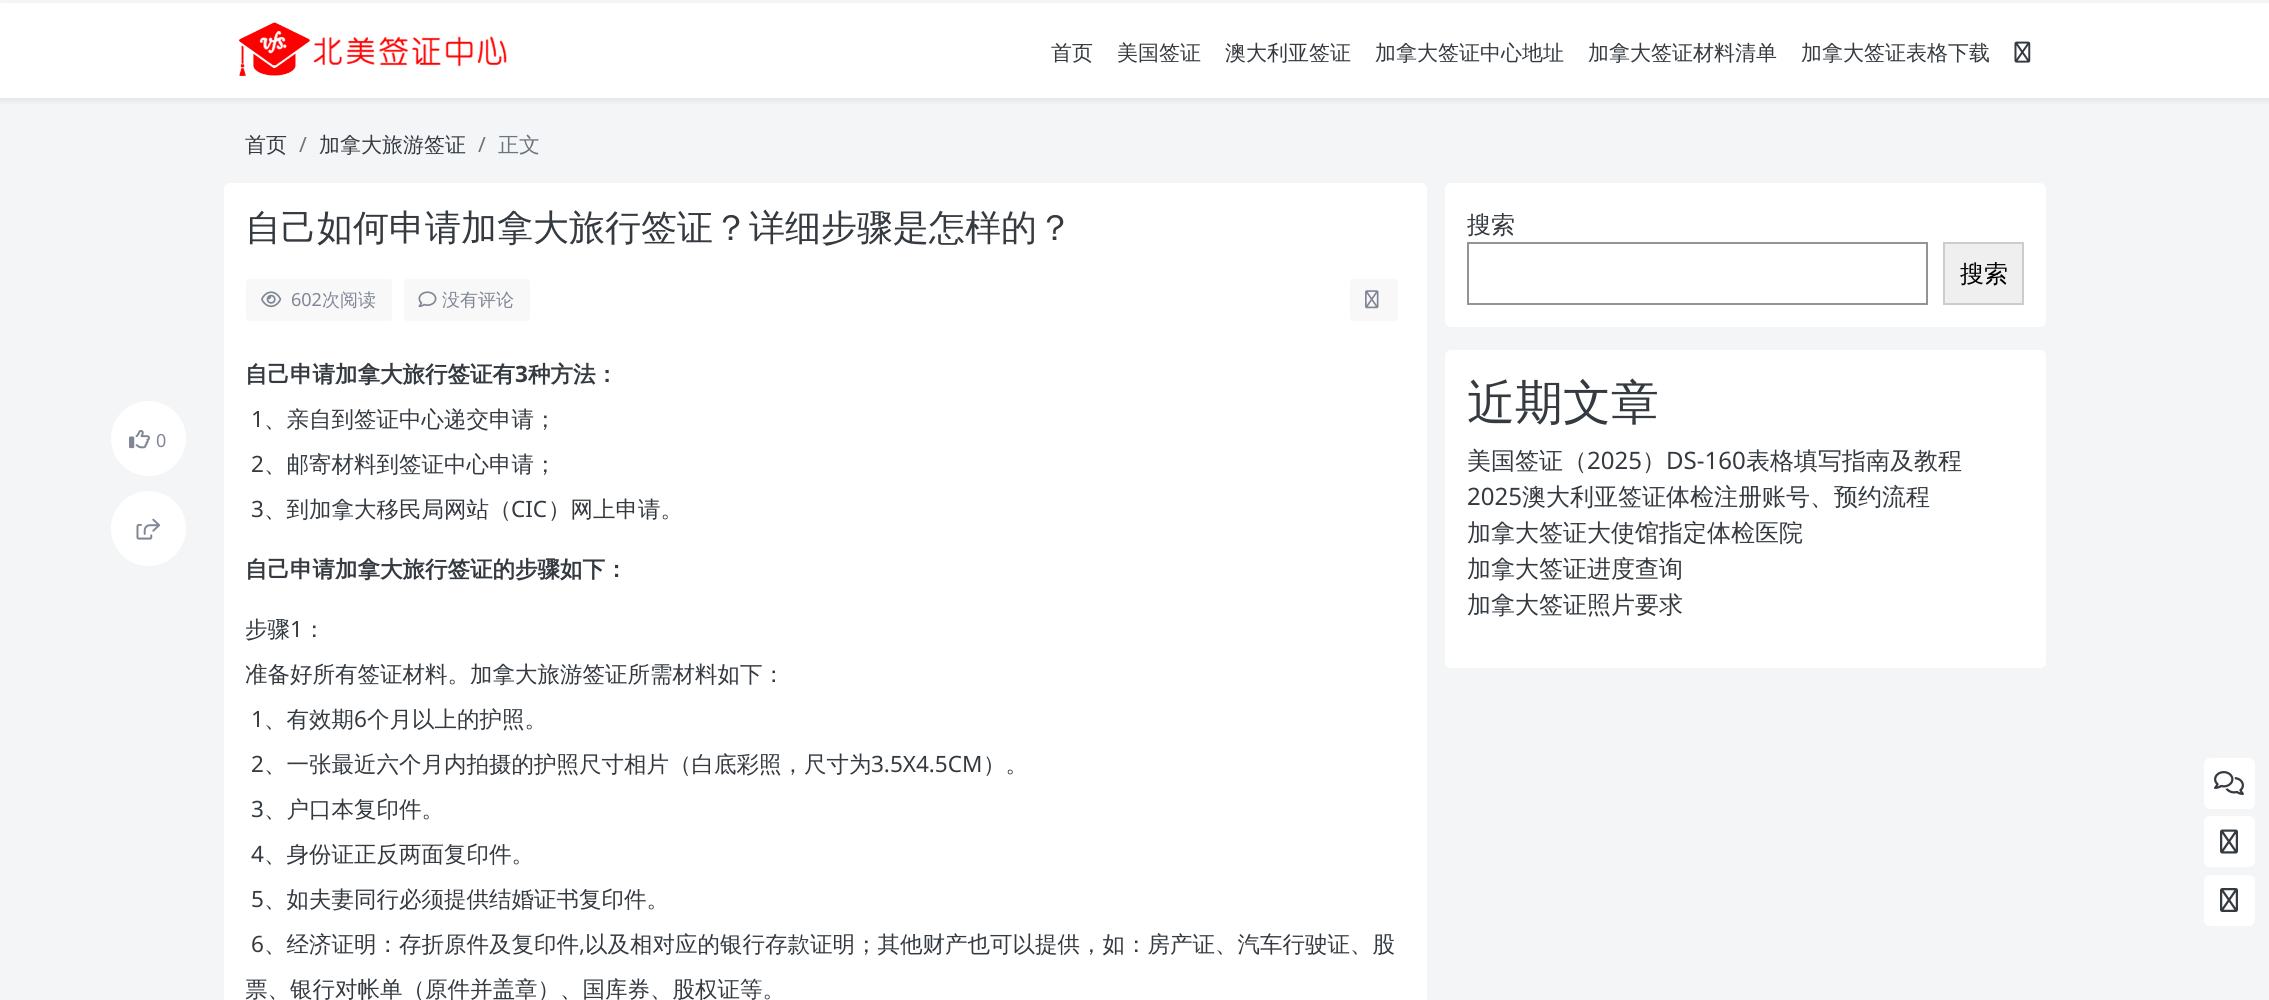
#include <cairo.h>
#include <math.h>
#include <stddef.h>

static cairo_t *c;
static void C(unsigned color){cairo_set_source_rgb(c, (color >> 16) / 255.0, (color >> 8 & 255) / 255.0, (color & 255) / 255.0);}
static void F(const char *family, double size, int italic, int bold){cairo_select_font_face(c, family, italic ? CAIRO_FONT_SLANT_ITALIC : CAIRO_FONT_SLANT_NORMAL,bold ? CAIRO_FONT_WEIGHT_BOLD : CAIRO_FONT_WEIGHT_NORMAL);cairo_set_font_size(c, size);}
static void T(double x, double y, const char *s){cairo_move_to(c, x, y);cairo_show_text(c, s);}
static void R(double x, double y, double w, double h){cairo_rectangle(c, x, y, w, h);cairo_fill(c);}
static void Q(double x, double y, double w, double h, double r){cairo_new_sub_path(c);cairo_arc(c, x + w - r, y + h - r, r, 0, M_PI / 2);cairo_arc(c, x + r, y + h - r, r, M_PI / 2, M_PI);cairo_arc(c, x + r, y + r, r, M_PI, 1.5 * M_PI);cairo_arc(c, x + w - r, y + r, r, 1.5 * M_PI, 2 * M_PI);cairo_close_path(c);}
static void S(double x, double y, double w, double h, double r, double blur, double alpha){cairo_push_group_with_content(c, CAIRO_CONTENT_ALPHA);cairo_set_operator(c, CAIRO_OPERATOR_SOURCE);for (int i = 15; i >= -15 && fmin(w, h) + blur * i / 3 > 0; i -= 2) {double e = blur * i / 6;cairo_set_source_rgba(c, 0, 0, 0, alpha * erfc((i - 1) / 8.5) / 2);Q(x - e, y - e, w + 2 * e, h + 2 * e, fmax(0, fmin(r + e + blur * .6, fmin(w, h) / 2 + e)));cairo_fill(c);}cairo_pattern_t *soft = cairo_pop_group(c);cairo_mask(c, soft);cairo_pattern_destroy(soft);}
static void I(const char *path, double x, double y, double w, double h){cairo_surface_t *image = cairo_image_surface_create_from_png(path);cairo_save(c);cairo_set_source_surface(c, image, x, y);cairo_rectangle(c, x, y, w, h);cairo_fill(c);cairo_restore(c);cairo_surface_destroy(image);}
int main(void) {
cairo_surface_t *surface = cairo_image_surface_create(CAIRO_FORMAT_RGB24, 2269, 1000);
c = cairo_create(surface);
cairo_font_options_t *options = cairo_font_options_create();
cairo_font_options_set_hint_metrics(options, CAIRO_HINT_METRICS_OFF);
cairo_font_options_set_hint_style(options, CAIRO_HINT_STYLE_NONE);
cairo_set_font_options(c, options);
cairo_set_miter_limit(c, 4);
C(0xf3f5f7);
cairo_paint(c);
C(0xffffff);
R(0,0,2269,98);
cairo_save(c);
cairo_set_fill_rule(c,CAIRO_FILL_RULE_EVEN_ODD);
cairo_new_path(c);
cairo_move_to(c,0,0);
cairo_line_to(c,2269,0);
cairo_line_to(c,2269,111);
cairo_line_to(c,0,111);
cairo_close_path(c);
cairo_move_to(c,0,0);
cairo_line_to(c,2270,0);
cairo_line_to(c,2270,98);
cairo_line_to(c,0,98);
cairo_close_path(c);
cairo_clip(c);
C(0x000000);
S(0,3,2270,98,0,3,.07);
cairo_restore(c);
C(0xf3f5f7);
Q(0,0,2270,3,1.5);
cairo_fill(c);
I("1.png",238,22,269,54);
F("WenQuanYi Zen Hei Medium",21,0,0);
C(0x343a40);
T(1051,60,"首页");
T(1117,60,"美国签证");
T(1225,60,"澳大利亚签证");
T(1375,60,"加拿大签证中心地址");
T(1588,60,"加拿大签证材料清单");
T(1801,60,"加拿大签证表格下载");
I("2.png",2014,41,17,22);
T(245,152,"首页");
F("Noto Sans",21,0,0);
C(0x6c757d);
T(299,152,"/");
F("WenQuanYi Zen Hei Medium",21,0,0);
C(0x343a40);
T(319,152,"加拿大旅游签证");
F("Noto Sans",21,0,0);
C(0x6c757d);
T(478,152,"/");
F("WenQuanYi Zen Hei Medium",21,0,0);
T(498,152,"正文");
C(0xffffff);
Q(224,183,1203,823,6);
cairo_fill(c);
F("WenQuanYi Zen Hei Medium",36,0,0);
C(0x343a40);
T(245,240,"自己如何申请加拿大旅行签证？详细步骤是怎样的？");
C(0xf8f8f9);
Q(246,279,146,42,3);
cairo_fill(c);
I("3.png",261,291,21,17);
F("Noto Sans",18,0,0);
C(0x808695);
T(291,306,"602");
F("WenQuanYi Zen Hei Medium",18,0,0);
T(322,306,"次阅读");
C(0xf8f8f9);
Q(404,279,126,42,3);
cairo_fill(c);
I("4.png",418,291,19,17);
C(0x808695);
T(442,306,"没有评论");
C(0xf8f8f9);
Q(1350,279,48,42,3);
cairo_fill(c);
I("5.png",1365,290,14,19);
C(0xffffff);
cairo_arc(c,148.5,438.5,37.5,0,2 * M_PI);
cairo_fill(c);
I("6.png",129,430,21,19);
F("Noto Sans",18,0,0);
C(0x808695);
T(156,447,"0");
C(0xffffff);
cairo_new_path(c);
cairo_arc(c,148.5,528.5,37.5,0,2 * M_PI);
cairo_fill(c);
I("7.png",136,518,25,22);
F("WenQuanYi Zen Hei",22.5,0,1);
C(0x343a40);
T(245,382,"自己申请加拿大旅行签证有");
F("Noto Sans",22.5,0,1);
T(515,382,"3");
F("WenQuanYi Zen Hei",22.5,0,1);
T(528,382,"种方法：");
F("Noto Sans",22.5,0,0);
T(251,427,"1");
F("WenQuanYi Zen Hei Medium",22.5,0,0);
T(264,427,"、亲自到签证中心递交申请；");
F("Noto Sans",22.5,0,0);
T(251,472,"2");
F("WenQuanYi Zen Hei Medium",22.5,0,0);
T(264,472,"、邮寄材料到签证中心申请；");
F("Noto Sans",22.5,0,0);
T(251,517,"3");
F("WenQuanYi Zen Hei Medium",22.5,0,0);
T(264,517,"、到加拿大移民局网站（");
F("Noto Sans",22.5,0,0);
T(511,517,"CIC");
F("WenQuanYi Zen Hei Medium",22.5,0,0);
T(548,517,"）网上申请。");
F("WenQuanYi Zen Hei",22.5,0,1);
T(245,577,"自己申请加拿大旅行签证的步骤如下：");
F("WenQuanYi Zen Hei Medium",22.5,0,0);
T(245,637,"步骤");
F("Noto Sans",22.5,0,0);
T(290,637,"1");
F("WenQuanYi Zen Hei Medium",22.5,0,0);
T(303,637,"：");
T(245,682,"准备好所有签证材料。加拿大旅游签证所需材料如下：");
F("Noto Sans",22.5,0,0);
T(251,727,"1");
F("WenQuanYi Zen Hei Medium",22.5,0,0);
T(264,727,"、有效期");
F("Noto Sans",22.5,0,0);
T(354,727,"6");
F("WenQuanYi Zen Hei Medium",22.5,0,0);
T(367,727,"个月以上的护照。");
F("Noto Sans",22.5,0,0);
T(251,772,"2");
F("WenQuanYi Zen Hei Medium",22.5,0,0);
T(264,772,"、一张最近六个月内拍摄的护照尺寸相片（白底彩照，尺寸为");
F("Noto Sans",22.5,0,0);
T(871,772,"3.5X4.5CM");
F("WenQuanYi Zen Hei Medium",22.5,0,0);
T(983,772,"）。");
F("Noto Sans",22.5,0,0);
T(251,817,"3");
F("WenQuanYi Zen Hei Medium",22.5,0,0);
T(264,817,"、户口本复印件。");
F("Noto Sans",22.5,0,0);
T(251,862,"4");
F("WenQuanYi Zen Hei Medium",22.5,0,0);
T(264,862,"、身份证正反两面复印件。");
F("Noto Sans",22.5,0,0);
T(251,907,"5");
F("WenQuanYi Zen Hei Medium",22.5,0,0);
T(264,907,"、如夫妻同行必须提供结婚证书复印件。");
F("Noto Sans",22.5,0,0);
T(251,952,"6");
F("WenQuanYi Zen Hei Medium",22.5,0,0);
T(264,952,"、经济证明：存折原件及复印件");
F("Noto Sans",22.5,0,0);
T(579,952,",");
F("WenQuanYi Zen Hei Medium",22.5,0,0);
T(585,952,"以及相对应的银行存款证明；其他财产也可以提供，如：房产证、汽车行驶证、股");
T(245,997,"票、银行对帐单（原件并盖章）、国库券、股权证等。");
C(0xffffff);
Q(1445,183,601,144,6);
cairo_fill(c);
F("WenQuanYi Zen Hei Medium",24,0,0);
C(0x343a40);
T(1467,233,"搜索");
cairo_rectangle(c,1468,243,459,61);
C(0x949494);
cairo_stroke(c);
C(0xefefef);
cairo_rectangle(c,1944,243,79,61);
cairo_fill_preserve(c);
C(0xcccccc);
cairo_stroke(c);
C(0x000000);
T(1960,282,"搜索");
C(0xffffff);
Q(1445,350,601,318,6);
cairo_fill(c);
F("WenQuanYi Zen Hei Medium",48,0,0);
C(0x343a40);
T(1467,419,"近期文章");
F("WenQuanYi Zen Hei Medium",24,0,0);
T(1467,469,"美国签证（");
F("Noto Sans",24,0,0);
T(1587,469,"2025");
F("WenQuanYi Zen Hei Medium",24,0,0);
T(1642,469,"）");
F("Noto Sans",24,0,0);
T(1666,469,"DS-160");
F("WenQuanYi Zen Hei Medium",24,0,0);
T(1746,469,"表格填写指南及教程");
F("Noto Sans",24,0,0);
T(1467,505,"2025");
F("WenQuanYi Zen Hei Medium",24,0,0);
T(1522,505,"澳大利亚签证体检注册账号、预约流程");
T(1467,541,"加拿大签证大使馆指定体检医院");
T(1467,577,"加拿大签证进度查询");
T(1467,613,"加拿大签证照片要求");
C(0xffffff);
Q(2204,758,51,51,6);
cairo_fill(c);
I("8.png",2214,771,30,24);
Q(2204,816,51,51,6);
cairo_fill(c);
I("9.png",2220,829,18,25);
Q(2204,875,51,51,6);
cairo_fill(c);
I("10.png",2220,888,18,24);
cairo_surface_write_to_png(surface, "o.png");
cairo_font_options_destroy(options);
cairo_destroy(c);
cairo_surface_destroy(surface);
return 0;
}
